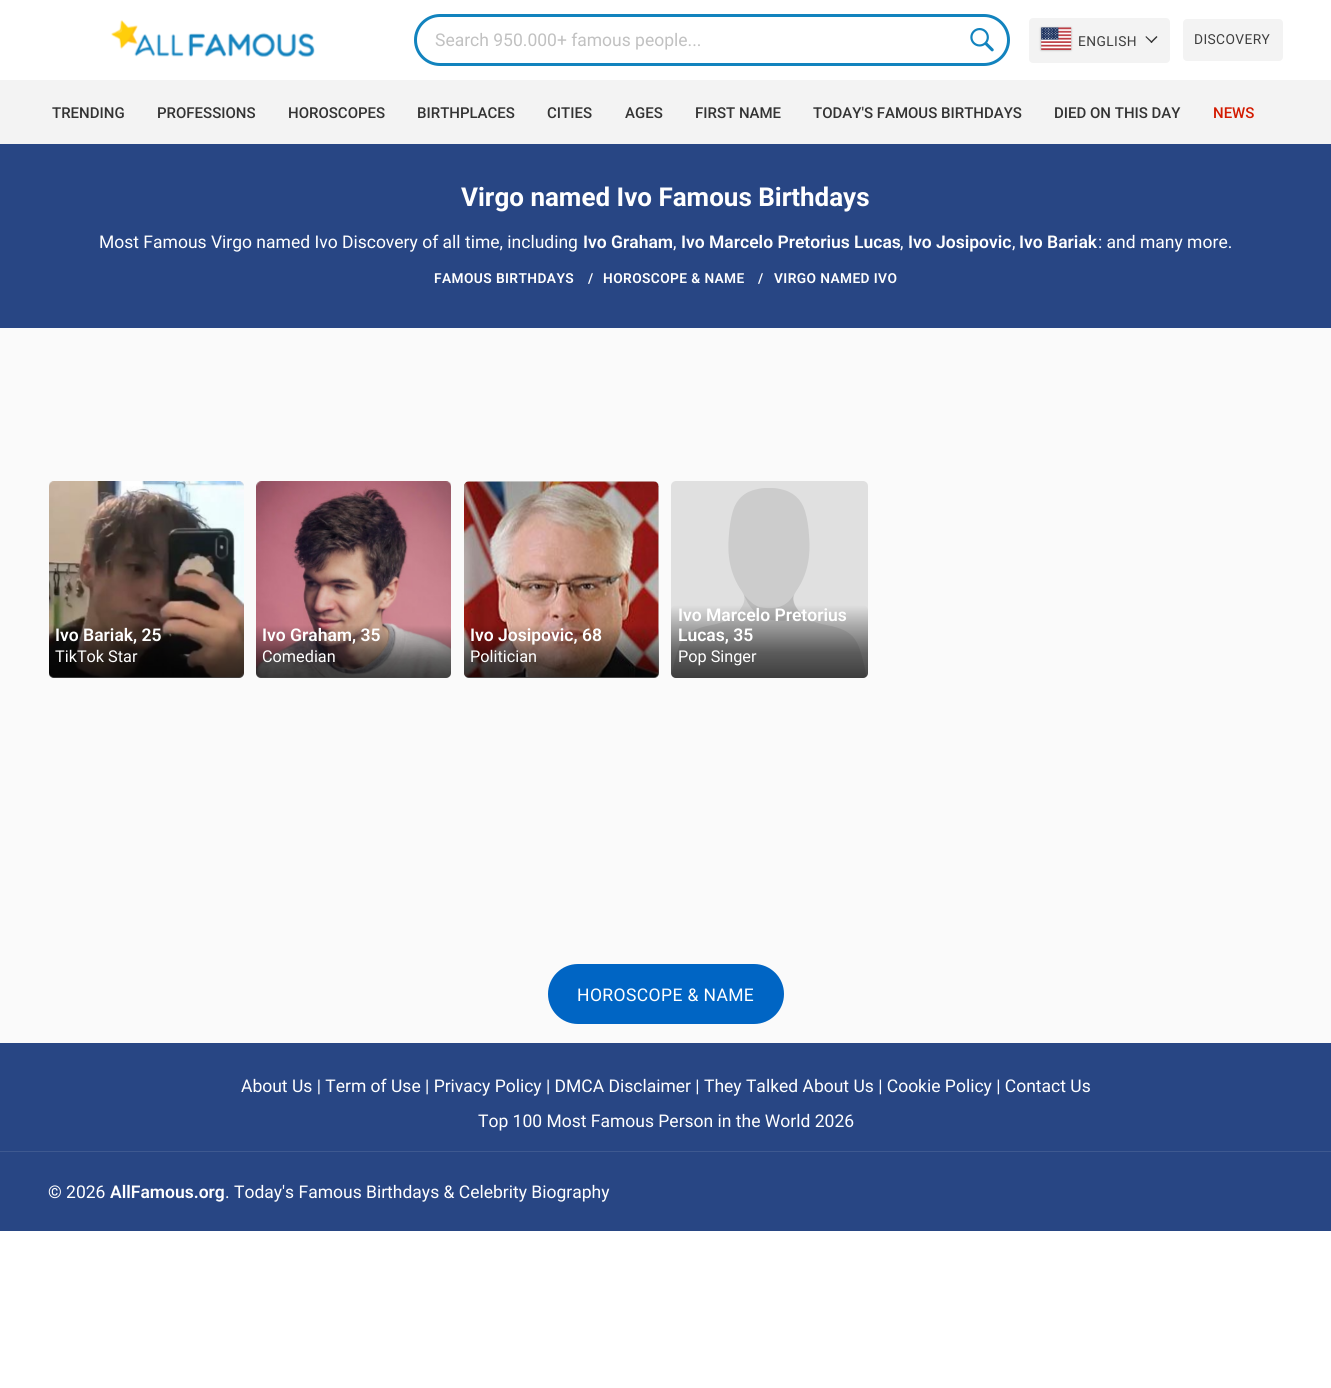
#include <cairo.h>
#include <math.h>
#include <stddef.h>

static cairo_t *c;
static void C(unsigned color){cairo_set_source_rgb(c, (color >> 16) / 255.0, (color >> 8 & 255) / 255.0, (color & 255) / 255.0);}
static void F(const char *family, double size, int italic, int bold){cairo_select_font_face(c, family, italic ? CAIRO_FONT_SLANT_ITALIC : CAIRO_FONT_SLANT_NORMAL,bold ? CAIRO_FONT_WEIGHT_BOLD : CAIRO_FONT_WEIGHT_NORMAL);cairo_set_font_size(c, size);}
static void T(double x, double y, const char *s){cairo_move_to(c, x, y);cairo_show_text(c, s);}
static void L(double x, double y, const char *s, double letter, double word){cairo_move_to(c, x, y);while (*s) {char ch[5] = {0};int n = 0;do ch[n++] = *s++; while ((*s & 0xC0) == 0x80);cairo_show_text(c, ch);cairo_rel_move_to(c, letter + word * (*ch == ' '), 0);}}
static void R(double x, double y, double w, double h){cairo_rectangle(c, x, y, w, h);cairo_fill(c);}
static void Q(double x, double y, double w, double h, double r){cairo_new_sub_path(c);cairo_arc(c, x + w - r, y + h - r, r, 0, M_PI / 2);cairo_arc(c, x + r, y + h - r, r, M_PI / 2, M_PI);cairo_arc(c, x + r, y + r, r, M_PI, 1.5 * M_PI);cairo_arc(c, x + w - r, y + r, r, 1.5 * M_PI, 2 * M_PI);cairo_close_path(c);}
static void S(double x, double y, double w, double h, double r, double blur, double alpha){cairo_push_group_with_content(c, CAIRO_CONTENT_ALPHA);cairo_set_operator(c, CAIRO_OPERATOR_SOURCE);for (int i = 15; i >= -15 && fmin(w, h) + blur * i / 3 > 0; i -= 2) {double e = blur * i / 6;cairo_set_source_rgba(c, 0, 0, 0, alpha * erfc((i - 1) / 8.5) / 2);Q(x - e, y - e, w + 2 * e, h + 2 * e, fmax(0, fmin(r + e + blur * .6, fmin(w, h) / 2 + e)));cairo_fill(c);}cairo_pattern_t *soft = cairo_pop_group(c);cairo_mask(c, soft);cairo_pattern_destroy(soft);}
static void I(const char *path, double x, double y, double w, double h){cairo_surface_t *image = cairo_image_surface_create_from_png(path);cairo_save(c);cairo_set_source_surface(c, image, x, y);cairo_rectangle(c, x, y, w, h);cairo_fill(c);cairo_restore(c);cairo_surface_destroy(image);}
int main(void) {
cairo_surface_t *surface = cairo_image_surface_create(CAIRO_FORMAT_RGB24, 1331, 1388);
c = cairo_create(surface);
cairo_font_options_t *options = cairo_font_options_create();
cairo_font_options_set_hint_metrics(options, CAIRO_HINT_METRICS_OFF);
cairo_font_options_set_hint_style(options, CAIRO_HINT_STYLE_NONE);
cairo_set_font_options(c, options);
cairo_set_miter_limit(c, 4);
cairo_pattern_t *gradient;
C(0xffffff);
cairo_paint(c);
C(0xfafafa);
R(0,328,1331,715);
C(0xf3f3f3);
R(0,80,1331,64);
I("1.png",111,20,204,37);
Q(415.5,15.5,593,49,24.5);
C(0x1283be);
cairo_set_line_width(c,3);
cairo_stroke(c);
F("Roboto",17.5,0,0);
C(0xc1c1c1);
T(435,46,"Search 950.000+ famous people...");
I("2.png",970,28,24,24);
C(0xf3f3f3);
Q(1029,18,141,45,4);
cairo_fill(c);
C(0xa3a3a3);
S(1041,28,30,22,0,1,1);
I("3.png",1041,27,31,23);
F("Roboto",13.75,0,0);
C(0x3e3e3e);
L(1078,46,"ENGLISH",.4,0);
C(0x333333);
cairo_new_path(c);
cairo_move_to(c,1150.5,42);
cairo_line_to(c,1156.5,36);
cairo_line_to(c,1157.5,37);
cairo_line_to(c,1151.5,43);
cairo_close_path(c);
cairo_fill(c);
cairo_new_path(c);
cairo_move_to(c,1145.5,37);
cairo_line_to(c,1146,36);
cairo_line_to(c,1152.5,42);
cairo_line_to(c,1151.5,43);
cairo_close_path(c);
cairo_fill(c);
C(0xf3f3f3);
Q(1183,19,100,42,4);
cairo_fill(c);
C(0x3e3e3e);
L(1194,44,"DISCOVERY",.4,0);
F("Roboto Medium",15,0,0);
C(0x333333);
T(52,118,"TRENDING");
T(157,118,"PROFESSIONS");
T(288,118,"HOROSCOPES");
T(417,118,"BIRTHPLACES");
T(547,118,"CITIES");
T(625,118,"AGES");
T(695,118,"FIRST NAME");
T(813,118,"TODAY'S FAMOUS BIRTHDAYS");
T(1054,118,"DIED ON THIS DAY");
C(0xd31a00);
T(1213,118,"NEWS");
C(0x284684);
R(0,144,1331,184);
F("Roboto",26,0,1);
C(0xffffff);
T(461,206,"Virgo named Ivo Famous Birthdays");
F("Roboto",17.5,0,0);
T(99,248,"Most Famous Virgo named Ivo Discovery of all time, including");
F("Roboto SemiBold",17.5,0,0);
T(583,248,"Ivo Graham");
F("Roboto",17.5,0,0);
T(673,248,",");
F("Roboto SemiBold",17.5,0,0);
T(681,248,"Ivo Marcelo Pretorius Lucas");
F("Roboto",17.5,0,0);
T(900,248,",");
F("Roboto SemiBold",17.5,0,0);
T(908,248,"Ivo Josipovic");
F("Roboto",17.5,0,0);
T(1012,248,",");
F("Roboto SemiBold",17.5,0,0);
T(1019,248,"Ivo Bariak");
F("Roboto",17.5,0,0);
T(1098,248,": and many more.");
F("Roboto SemiBold",13.75,0,0);
L(434,283,"FAMOUS BIRTHDAYS",.4,0);
L(588,283,"/",.4,0);
L(603,283,"HOROSCOPE & NAME",.4,0);
L(758,283,"/",.4,0);
L(774,283,"VIRGO NAMED IVO",.4,0);
C(0xe0e0e0);
Q(49,481,195,197,5);
cairo_fill(c);
I("4.png",49,481,195,197);
gradient = cairo_pattern_create_linear(146,625,146,678);
cairo_pattern_add_color_stop_rgba(gradient,0,0,0,0,0);
cairo_pattern_add_color_stop_rgba(gradient,.65,0,0,0,.55);
cairo_pattern_add_color_stop_rgba(gradient,1,0,0,0,.7);
cairo_set_source(c,gradient);
cairo_pattern_destroy(gradient);
Q(49,625,195,53,5);
cairo_fill(c);
F("Roboto SemiBold",17.5,0,0);
C(0xffffff);
T(55,641,"Ivo Bariak, 25");
F("Roboto",16.25,0,0);
T(55,662,"TikTok Star");
C(0xe0e0e0);
Q(256,481,195,197,5);
cairo_fill(c);
I("5.png",256,481,195,197);
gradient = cairo_pattern_create_linear(354,625,354,678);
cairo_pattern_add_color_stop_rgba(gradient,0,0,0,0,0);
cairo_pattern_add_color_stop_rgba(gradient,.65,0,0,0,.55);
cairo_pattern_add_color_stop_rgba(gradient,1,0,0,0,.7);
cairo_set_source(c,gradient);
cairo_pattern_destroy(gradient);
Q(256,625,195,53,5);
cairo_fill(c);
F("Roboto SemiBold",17.5,0,0);
C(0xffffff);
T(262,641,"Ivo Graham, 35");
F("Roboto",16.25,0,0);
T(262,662,"Comedian");
C(0xe0e0e0);
Q(464,481,195,197,5);
cairo_fill(c);
I("6.png",464,481,195,197);
gradient = cairo_pattern_create_linear(561,625,561,678);
cairo_pattern_add_color_stop_rgba(gradient,0,0,0,0,0);
cairo_pattern_add_color_stop_rgba(gradient,.65,0,0,0,.55);
cairo_pattern_add_color_stop_rgba(gradient,1,0,0,0,.7);
cairo_set_source(c,gradient);
cairo_pattern_destroy(gradient);
Q(464,625,195,53,5);
cairo_fill(c);
F("Roboto SemiBold",17.5,0,0);
C(0xffffff);
T(470,641,"Ivo Josipovic, 68");
F("Roboto",16.25,0,0);
T(470,662,"Politician");
C(0xe0e0e0);
Q(671,481,197,197,5);
cairo_fill(c);
I("7.png",672,488,195,190);
gradient = cairo_pattern_create_linear(769,605,769,678);
cairo_pattern_add_color_stop_rgba(gradient,0,0,0,0,0);
cairo_pattern_add_color_stop_rgba(gradient,.65,0,0,0,.55);
cairo_pattern_add_color_stop_rgba(gradient,1,0,0,0,.7);
cairo_set_source(c,gradient);
cairo_pattern_destroy(gradient);
Q(671,605,197,73,5);
cairo_fill(c);
F("Roboto SemiBold",17.5,0,0);
C(0xffffff);
T(678,621,"Ivo Marcelo Pretorius");
T(678,641,"Lucas, 35");
F("Roboto",16.25,0,0);
T(678,662,"Pop Singer");
C(0x0065c4);
Q(548,964,236,60,30);
cairo_fill(c);
F("Roboto",17.5,0,0);
C(0xffffff);
L(577,1001,"HOROSCOPE & NAME",.4,0);
C(0x284684);
R(0,1043,1331,188);
C(0xffffff);
T(241,1092,"About Us | Term of Use | Privacy Policy | DMCA Disclaimer | They Talked About Us | Cookie Policy | Contact Us");
T(478,1127,"Top 100 Most Famous Person in the World 2026");
C(0x3e5990);
R(0,1151,1331,1);
C(0xffffff);
T(48,1198,"© 2026");
F("Roboto SemiBold",17.5,0,0);
T(110,1198,"AllFamous.org");
F("Roboto",17.5,0,0);
T(225,1198,". Today's Famous Birthdays & Celebrity Biography");
cairo_surface_write_to_png(surface, "o.png");
cairo_font_options_destroy(options);
cairo_destroy(c);
cairo_surface_destroy(surface);
return 0;
}
